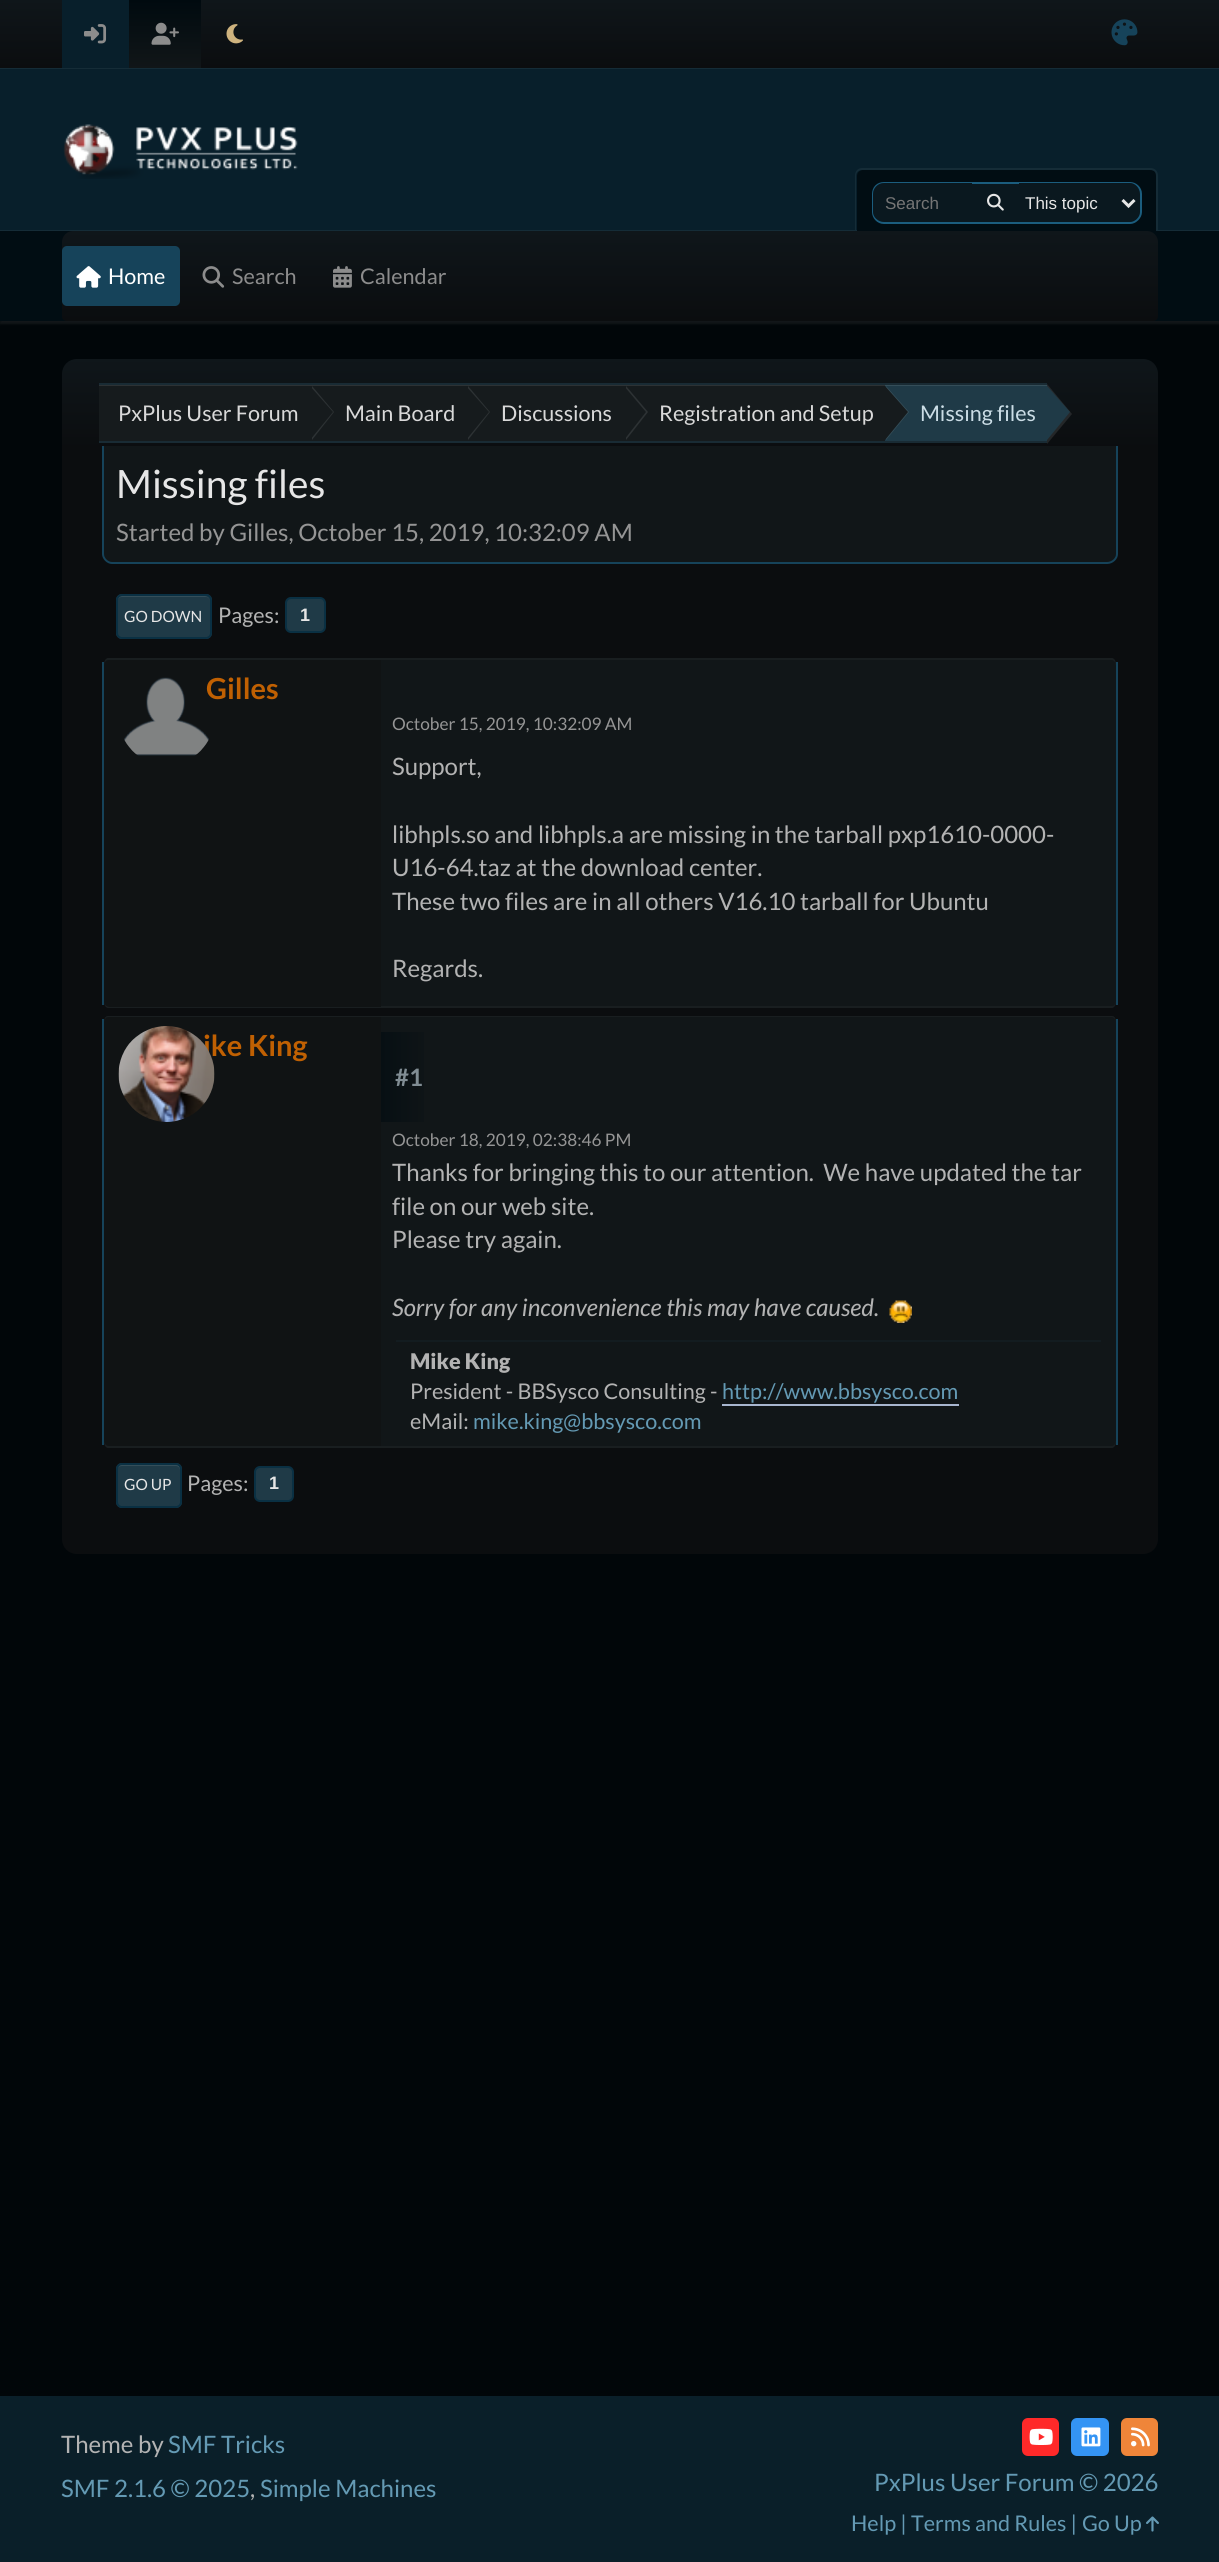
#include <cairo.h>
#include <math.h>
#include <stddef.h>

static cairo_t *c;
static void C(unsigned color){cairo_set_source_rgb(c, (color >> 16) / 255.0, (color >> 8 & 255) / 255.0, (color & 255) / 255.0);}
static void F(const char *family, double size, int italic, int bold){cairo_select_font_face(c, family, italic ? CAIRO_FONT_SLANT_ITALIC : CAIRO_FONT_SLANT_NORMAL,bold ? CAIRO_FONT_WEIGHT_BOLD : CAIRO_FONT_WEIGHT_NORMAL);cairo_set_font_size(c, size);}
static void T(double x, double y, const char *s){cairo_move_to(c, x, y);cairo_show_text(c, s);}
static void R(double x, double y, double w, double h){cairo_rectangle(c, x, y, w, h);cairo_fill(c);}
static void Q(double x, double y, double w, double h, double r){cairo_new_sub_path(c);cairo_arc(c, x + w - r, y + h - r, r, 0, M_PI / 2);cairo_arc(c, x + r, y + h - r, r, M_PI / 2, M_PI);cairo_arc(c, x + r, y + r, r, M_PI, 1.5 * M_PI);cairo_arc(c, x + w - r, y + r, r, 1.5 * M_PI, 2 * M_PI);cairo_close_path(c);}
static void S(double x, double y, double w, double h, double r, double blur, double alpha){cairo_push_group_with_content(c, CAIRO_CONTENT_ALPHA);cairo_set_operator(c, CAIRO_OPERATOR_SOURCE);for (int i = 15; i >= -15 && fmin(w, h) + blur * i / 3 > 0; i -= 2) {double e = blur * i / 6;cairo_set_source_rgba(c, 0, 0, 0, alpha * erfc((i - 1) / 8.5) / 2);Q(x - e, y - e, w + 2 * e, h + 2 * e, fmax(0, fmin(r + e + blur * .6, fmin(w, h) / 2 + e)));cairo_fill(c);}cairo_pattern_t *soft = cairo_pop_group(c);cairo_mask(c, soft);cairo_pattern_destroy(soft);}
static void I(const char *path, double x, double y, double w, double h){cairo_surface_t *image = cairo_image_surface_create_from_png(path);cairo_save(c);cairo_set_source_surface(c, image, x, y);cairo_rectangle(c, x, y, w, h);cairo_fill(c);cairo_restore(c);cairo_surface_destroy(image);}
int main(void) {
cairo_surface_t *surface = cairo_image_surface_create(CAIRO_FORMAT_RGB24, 1219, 2562);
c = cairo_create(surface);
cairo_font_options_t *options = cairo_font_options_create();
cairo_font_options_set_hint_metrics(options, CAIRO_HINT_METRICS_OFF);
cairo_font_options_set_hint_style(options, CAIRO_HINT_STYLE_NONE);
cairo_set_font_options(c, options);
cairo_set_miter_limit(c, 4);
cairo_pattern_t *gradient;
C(0x010609);
cairo_paint(c);
gradient = cairo_pattern_create_linear(610,0,610,68);
cairo_pattern_add_color_stop_rgba(gradient,0,0.059,0.086,0.102,1);
cairo_pattern_add_color_stop_rgba(gradient,1,0.043,0.051,0.059,1);
cairo_set_source(c,gradient);
cairo_pattern_destroy(gradient);
R(0,0,1219,68);
C(0x152c37);
R(0,68,1219,1);
C(0x081f2b);
R(62,0,67,68);
I("1.png",84,24,23,20);
gradient = cairo_pattern_create_linear(165,0,165,68);
cairo_pattern_add_color_stop_rgba(gradient,0,0,0.039,0.059,1);
cairo_pattern_add_color_stop_rgba(gradient,1,0.067,0.086,0.094,1);
cairo_set_source(c,gradient);
cairo_pattern_destroy(gradient);
R(129,0,72,68);
I("2.png",151,22,28,23);
I("3.png",226,24,17,20);
I("4.png",1111,19,27,27);
C(0x081f2b);
R(0,69,1219,161);
C(0x152c37);
R(0,230,1219,1);
I("5.png",63,124,235,55);
C(0xaaaaaa);
S(0,234,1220,90,0,1,.1);
C(0x010d13);
cairo_new_path(c);
cairo_move_to(c,863,170);
cairo_line_to(c,1151,170);
cairo_curve_to(c,1154.5,170,1157,172.5,1157,176);
cairo_line_to(c,1157,231);
cairo_line_to(c,857,231);
cairo_line_to(c,857,176);
cairo_curve_to(c,857,172.5,859.5,170,863,170);
cairo_close_path(c);
cairo_fill(c);
C(0x152c37);
cairo_set_fill_rule(c,CAIRO_FILL_RULE_EVEN_ODD);
cairo_new_path(c);
cairo_move_to(c,862,168);
cairo_line_to(c,1150,168);
cairo_curve_to(c,1155,168,1158,171,1158,176);
cairo_line_to(c,1158,231);
cairo_line_to(c,855,231);
cairo_line_to(c,855,176);
cairo_curve_to(c,855,171,858,168,862,168);
cairo_close_path(c);
cairo_move_to(c,862,170);
cairo_line_to(c,1150,170);
cairo_curve_to(c,1154,170,1156,172,1156,176);
cairo_line_to(c,1156,231);
cairo_line_to(c,856,231);
cairo_line_to(c,856,176);
cairo_curve_to(c,856,172,859,170,862,170);
cairo_close_path(c);
cairo_fill(c);
C(0x0a181f);
cairo_new_path(c);
cairo_move_to(c,884,183);
cairo_line_to(c,972,183);
cairo_line_to(c,972,222);
cairo_line_to(c,884,222);
cairo_curve_to(c,878,222,873,217,873,211);
cairo_line_to(c,873,194);
cairo_curve_to(c,873,188,878,183,884,183);
cairo_close_path(c);
cairo_fill(c);
C(0x1b5d7e);
cairo_new_path(c);
cairo_move_to(c,884,182);
cairo_line_to(c,972,182);
cairo_line_to(c,972,224);
cairo_line_to(c,884,224);
cairo_curve_to(c,877,224,872,218,872,212);
cairo_line_to(c,872,194);
cairo_curve_to(c,872,187,877,182,884,182);
cairo_close_path(c);
cairo_move_to(c,884,183);
cairo_line_to(c,972,183);
cairo_line_to(c,972,222);
cairo_line_to(c,884,222);
cairo_curve_to(c,878,222,873,217,873,212);
cairo_line_to(c,873,194);
cairo_curve_to(c,873,188,878,183,884,183);
cairo_close_path(c);
cairo_fill(c);
F("Liberation Sans",17,0,0);
C(0x757575);
T(885,209,"Search");
C(0x0a181f);
R(972,184,47,38);
C(0x1b5d7e);
R(972,182,47,2);
R(972,222,47,2);
I("6.png",987,193,17,18);
C(0x0a181f);
cairo_new_path(c);
cairo_move_to(c,1019,183);
cairo_line_to(c,1129,183);
cairo_curve_to(c,1135,183,1140,188,1140,194);
cairo_line_to(c,1140,211);
cairo_curve_to(c,1140,217,1135,222,1129,222);
cairo_line_to(c,1019,222);
cairo_close_path(c);
cairo_fill(c);
C(0x1b5d7e);
cairo_new_path(c);
cairo_move_to(c,1018,182);
cairo_line_to(c,1130,182);
cairo_curve_to(c,1136,182,1142,187,1142,194);
cairo_line_to(c,1142,212);
cairo_curve_to(c,1142,218,1136,224,1130,224);
cairo_line_to(c,1018,224);
cairo_close_path(c);
cairo_move_to(c,1018,183);
cairo_line_to(c,1130,183);
cairo_curve_to(c,1135,183,1140,188,1140,194);
cairo_line_to(c,1140,212);
cairo_curve_to(c,1140,217,1135,222,1130,222);
cairo_line_to(c,1018,222);
cairo_close_path(c);
cairo_fill(c);
cairo_new_path(c);
cairo_move_to(c,1122.5,200);
cairo_line_to(c,1128.5,206);
cairo_line_to(c,1134.5,200);
C(0xe6e6e6);
cairo_set_line_width(c,3);
cairo_stroke(c);
T(1025,209,"This topic");
C(0x010d13);
R(0,231,1219,90);
gradient = cairo_pattern_create_linear(610,231,610,321);
cairo_pattern_add_color_stop_rgba(gradient,0,0.059,0.086,0.102,1);
cairo_pattern_add_color_stop_rgba(gradient,1,0.043,0.051,0.059,1);
cairo_set_source(c,gradient);
cairo_pattern_destroy(gradient);
cairo_new_path(c);
cairo_move_to(c,73,231);
cairo_line_to(c,1147,231);
cairo_curve_to(c,1153,231,1158,236,1158,242);
cairo_line_to(c,1158,316);
cairo_curve_to(c,1158,319,1156,321,1153,321);
cairo_line_to(c,67,321);
cairo_curve_to(c,64,321,62,319,62,316);
cairo_line_to(c,62,242);
cairo_curve_to(c,62,236,67,231,73,231);
cairo_close_path(c);
cairo_fill(c);
C(0x16435a);
Q(62,246,118,60,5);
cairo_fill(c);
I("7.png",76,266,25,22);
F("Lato",21.6,0,0);
C(0xffffff);
T(108,284,"Home");
I("8.png",202,266,23,22);
C(0x8c8c8c);
T(232,284,"Search");
I("9.png",333,266,19,22);
T(360,284,"Calendar");
gradient = cairo_pattern_create_linear(610,358,610,449);
cairo_pattern_add_color_stop_rgba(gradient,0,0.059,0.086,0.102,1);
cairo_pattern_add_color_stop_rgba(gradient,1,0.043,0.051,0.059,1);
cairo_set_source(c,gradient);
cairo_pattern_destroy(gradient);
cairo_new_path(c);
cairo_move_to(c,77,359);
cairo_line_to(c,1143,359);
cairo_curve_to(c,1151.5,359,1158,365.5,1158,374);
cairo_line_to(c,1158,449);
cairo_line_to(c,62,449);
cairo_line_to(c,62,374);
cairo_curve_to(c,62,365.5,68.5,359,77,359);
cairo_close_path(c);
cairo_fill(c);
C(0x161b1d);
R(99,386,786,55);
C(0x2d3234);
R(99,385,786,1);
C(0x192b34);
R(99,383,948,2);
R(99,441,948,2);
C(0x2d3234);
cairo_set_fill_rule(c,CAIRO_FILL_RULE_WINDING);
cairo_new_path(c);
cairo_move_to(c,312,440);
cairo_line_to(c,312,386);
cairo_line_to(c,334,412);
cairo_close_path(c);
cairo_fill(c);
C(0x161b1d);
cairo_new_path(c);
cairo_move_to(c,310,440);
cairo_line_to(c,310,386);
cairo_line_to(c,333,412);
cairo_close_path(c);
cairo_fill(c);
C(0xd9d9d9);
T(118,421,"PxPlus User Forum");
C(0x2d3234);
cairo_new_path(c);
cairo_move_to(c,468,440);
cairo_line_to(c,468,386);
cairo_line_to(c,490,412);
cairo_close_path(c);
cairo_fill(c);
C(0x161b1d);
cairo_new_path(c);
cairo_move_to(c,466,440);
cairo_line_to(c,466,386);
cairo_line_to(c,489,412);
cairo_close_path(c);
cairo_fill(c);
C(0xd9d9d9);
T(345,421,"Main Board");
C(0x2d3234);
cairo_new_path(c);
cairo_move_to(c,626,440);
cairo_line_to(c,626,386);
cairo_line_to(c,648,412);
cairo_close_path(c);
cairo_fill(c);
C(0x161b1d);
cairo_new_path(c);
cairo_move_to(c,624,440);
cairo_line_to(c,624,386);
cairo_line_to(c,646,412);
cairo_close_path(c);
cairo_fill(c);
C(0xd9d9d9);
T(501,421,"Discussions");
C(0x1f3a47);
R(885,386,162,55);
C(0x354e59);
cairo_new_path(c);
cairo_move_to(c,886,440);
cairo_line_to(c,886,386);
cairo_line_to(c,909,412);
cairo_close_path(c);
cairo_fill(c);
C(0x161b1d);
cairo_new_path(c);
cairo_move_to(c,885,440);
cairo_line_to(c,885,386);
cairo_line_to(c,908,412);
cairo_close_path(c);
cairo_fill(c);
C(0xd9d9d9);
T(659,421,"Registration and Setup");
C(0x354e59);
R(885,385,162,1);
cairo_set_source_rgba(c,1,1,1,0.1);
cairo_new_path(c);
cairo_move_to(c,1047,444);
cairo_line_to(c,1047,384);
cairo_line_to(c,1072,414);
cairo_close_path(c);
cairo_fill(c);
C(0xcbdde6);
T(920,421,"Missing files");
C(0x1f3a47);
cairo_new_path(c);
cairo_move_to(c,1047,440);
cairo_line_to(c,1047,386);
cairo_line_to(c,1070,412);
cairo_close_path(c);
cairo_fill(c);
C(0x0b0d0f);
cairo_new_path(c);
cairo_move_to(c,62,449);
cairo_line_to(c,1158,449);
cairo_line_to(c,1158,1539);
cairo_curve_to(c,1158,1547.5,1151.5,1554,1143,1554);
cairo_line_to(c,77,1554);
cairo_curve_to(c,68.5,1554,62,1547.5,62,1539);
cairo_close_path(c);
cairo_fill(c);
C(0x111618);
cairo_new_path(c);
cairo_move_to(c,104,446);
cairo_line_to(c,1116,446);
cairo_line_to(c,1116,554);
cairo_curve_to(c,1116,559,1112,563,1107,563);
cairo_line_to(c,113,563);
cairo_curve_to(c,108,563,104,559,104,554);
cairo_close_path(c);
cairo_fill(c);
C(0x16435a);
cairo_set_fill_rule(c,CAIRO_FILL_RULE_EVEN_ODD);
cairo_new_path(c);
cairo_move_to(c,102,446);
cairo_line_to(c,1118,446);
cairo_line_to(c,1118,554);
cairo_curve_to(c,1118,559,1113,564,1107,564);
cairo_line_to(c,112,564);
cairo_curve_to(c,107,564,102,559,102,554);
cairo_close_path(c);
cairo_move_to(c,104,446);
cairo_line_to(c,1116,446);
cairo_line_to(c,1116,554);
cairo_curve_to(c,1116,558,1112,562,1107,562);
cairo_line_to(c,112,562);
cairo_curve_to(c,108,562,104,558,104,554);
cairo_close_path(c);
cairo_fill(c);
F("Lato",39,0,0);
C(0xe6e6e6);
T(116,498,"Missing files");
F("Lato",24,0,0);
C(0x959595);
T(116,541,"Started by Gilles, October 15, 2019, 10:32:09 AM");
C(0x1f3a47);
Q(116,594,96,45,6);
cairo_fill(c);
C(0x354e59);
cairo_set_fill_rule(c,CAIRO_FILL_RULE_WINDING);
cairo_new_path(c);
cairo_move_to(c,122,597);
cairo_line_to(c,206,597);
cairo_curve_to(c,208,597,210,599,210,602);
cairo_curve_to(c,210,593,197,596,191,596);
cairo_line_to(c,136,596);
cairo_curve_to(c,130,596,117,593,117,602);
cairo_curve_to(c,117,599,119,597,122,597);
cairo_close_path(c);
cairo_fill(c);
Q(117,595,94,43,5);
C(0x0a3043);
cairo_set_line_width(c,2);
cairo_stroke(c);
F("Lato",15.5,0,0);
C(0xe6e6e6);
T(124,622,"GO DOWN");
F("Lato",21.6,0,0);
C(0xb3b3b3);
T(218,623,"Pages:");
C(0x1f3a47);
Q(286,598,39,34,5);
cairo_fill_preserve(c);
C(0x0a3043);
cairo_stroke(c);
F("Liberation Sans",18,0,1);
C(0xe6e6e6);
T(300,621,"1");
C(0x111618);
cairo_new_path(c);
cairo_move_to(c,108,658);
cairo_line_to(c,1112,658);
cairo_curve_to(c,1114,658,1116,661,1116,664);
cairo_line_to(c,1116,1002);
cairo_curve_to(c,1116,1005,1114,1008,1112,1008);
cairo_line_to(c,108,1008);
cairo_curve_to(c,106,1008,104,1005,104,1002);
cairo_line_to(c,104,664);
cairo_curve_to(c,104,661,106,658,108,658);
cairo_close_path(c);
cairo_fill(c);
cairo_set_source_rgba(c,0.412,0.412,0.412,0.1);
cairo_new_path(c);
cairo_move_to(c,104,661);
cairo_line_to(c,104,664);
cairo_line_to(c,104,1002);
cairo_curve_to(c,104,1005,106,1008,108,1008);
cairo_line_to(c,1112,1008);
cairo_curve_to(c,1114,1008,1116,1005,1116,1002);
cairo_line_to(c,1116,1000);
cairo_curve_to(c,1116,1004,1114,1006,1112,1006);
cairo_line_to(c,108,1006);
cairo_curve_to(c,106,1006,104,1004,104,1000);
cairo_close_path(c);
cairo_fill(c);
cairo_new_path(c);
cairo_move_to(c,108,660);
cairo_line_to(c,1112,660);
cairo_curve_to(c,1114,660,1116,663,1116,666);
cairo_line_to(c,1116,664);
cairo_curve_to(c,1116,661,1114,658,1112,658);
cairo_line_to(c,108,658);
cairo_curve_to(c,106,658,104,661,104,664);
cairo_line_to(c,104,1002);
cairo_line_to(c,104,1005);
cairo_line_to(c,104,666);
cairo_curve_to(c,104,664,105,660,108,660);
cairo_close_path(c);
cairo_fill(c);
C(0x16435a);
R(1116,662,2,343);
R(102,662,2,343);
C(0x101314);
cairo_new_path(c);
cairo_move_to(c,110,660);
cairo_line_to(c,381,660);
cairo_line_to(c,381,1007);
cairo_line_to(c,110,1007);
cairo_curve_to(c,106.5,1007,104,1004.5,104,1001);
cairo_line_to(c,104,666);
cairo_curve_to(c,104,662.5,106.5,660,110,660);
cairo_close_path(c);
cairo_fill(c);
F("Lato",29,0,1);
C(0xc06002);
T(206,699,"Gilles");
I("10.png",124,677,85,79);
F("Lato",17.25,0,0);
C(0x959595);
T(392,730,"October 15, 2019, 10:32:09 AM");
F("Lato",24,0,0);
C(0xb3b3b3);
T(392,775,"Support,");
T(392,843,"libhpls.so and libhpls.a are missing in the tarball pxp1610-0000-");
T(392,876,"U16-64.taz at the download center.");
T(392,910,"These two files are in all others V16.10 tarball for Ubuntu");
T(392,977,"Regards.");
C(0x111618);
cairo_new_path(c);
cairo_move_to(c,108,1016);
cairo_line_to(c,1112,1016);
cairo_curve_to(c,1114,1016,1116,1018,1116,1022);
cairo_line_to(c,1116,1442);
cairo_curve_to(c,1116,1445,1114,1448,1112,1448);
cairo_line_to(c,108,1448);
cairo_curve_to(c,106,1448,104,1445,104,1442);
cairo_line_to(c,104,1022);
cairo_curve_to(c,104,1018,106,1016,108,1016);
cairo_close_path(c);
cairo_fill(c);
cairo_set_source_rgba(c,0.412,0.412,0.412,0.1);
cairo_new_path(c);
cairo_move_to(c,104,1018);
cairo_line_to(c,104,1022);
cairo_line_to(c,104,1442);
cairo_curve_to(c,104,1445,106,1448,108,1448);
cairo_line_to(c,1112,1448);
cairo_curve_to(c,1114,1448,1116,1445,1116,1442);
cairo_line_to(c,1116,1440);
cairo_curve_to(c,1116,1443,1114,1446,1112,1446);
cairo_line_to(c,108,1446);
cairo_curve_to(c,106,1446,104,1443,104,1440);
cairo_close_path(c);
cairo_fill(c);
cairo_new_path(c);
cairo_move_to(c,108,1017);
cairo_line_to(c,1112,1017);
cairo_curve_to(c,1114,1017,1116,1020,1116,1023);
cairo_line_to(c,1116,1022);
cairo_curve_to(c,1116,1018,1114,1016,1112,1016);
cairo_line_to(c,108,1016);
cairo_curve_to(c,106,1016,104,1018,104,1022);
cairo_line_to(c,104,1442);
cairo_line_to(c,104,1445);
cairo_line_to(c,104,1023);
cairo_curve_to(c,104,1021,105,1017,108,1017);
cairo_close_path(c);
cairo_fill(c);
C(0x16435a);
R(1116,1019,2,426);
R(102,1019,2,426);
C(0x101314);
cairo_new_path(c);
cairo_move_to(c,110,1017);
cairo_line_to(c,381,1017);
cairo_line_to(c,381,1446);
cairo_line_to(c,110,1446);
cairo_curve_to(c,106.5,1446,104,1443.5,104,1440);
cairo_line_to(c,104,1023);
cairo_curve_to(c,104,1019.5,106.5,1017,110,1017);
cairo_close_path(c);
cairo_fill(c);
F("Lato",29,0,1);
C(0xc06002);
T(203,1056,"ike King");
I("11.png",118,1026,97,96);
gradient = cairo_pattern_create_linear(381,1077,438,1077);
cairo_pattern_add_color_stop_rgba(gradient,0,0.027,0.059,0.075,1);
cairo_pattern_add_color_stop_rgba(gradient,1,0.067,0.086,0.094,1);
cairo_set_source(c,gradient);
cairo_pattern_destroy(gradient);
R(381,1032,43,90);
F("Lato",24,0,1);
C(0x818d94);
T(395,1086,"#1");
F("Lato",17.25,0,0);
C(0x959595);
T(392,1146,"October 18, 2019, 02:38:46 PM");
F("Lato",24,0,0);
C(0xb3b3b3);
T(392,1181,"Thanks for bringing this to our attention.  We have updated the tar");
T(392,1215,"file on our web site.");
T(392,1248,"Please try again.");
F("Lato",24,1,0);
T(392,1316,"Sorry for any inconvenience this may have caused.");
I("12.png",889,1300,23,23);
C(0x131c20);
R(396,1340,705,2);
F("Lato Black",21.6,0,0);
C(0xb3b3b3);
T(410,1369,"Mike King");
F("Lato",21.6,0,0);
T(410,1399,"President - BBSysco Consulting -");
C(0x649ab4);
T(722,1399,"http://www.bbsysco.com");
C(0xa8b6cf);
R(722,1404,237,2);
C(0xb3b3b3);
T(410,1429,"eMail:");
C(0x649ab4);
T(473,1429,"mike.king@bbsysco.com");
C(0x1f3a47);
Q(116,1463,66,45,6);
cairo_fill(c);
C(0x354e59);
cairo_new_path(c);
cairo_move_to(c,122,1466);
cairo_line_to(c,176,1466);
cairo_curve_to(c,178,1466,180,1468,180,1470);
cairo_curve_to(c,180,1462,172,1464,166,1464);
cairo_line_to(c,131,1464);
cairo_curve_to(c,125,1464,117,1462,117,1470);
cairo_curve_to(c,117,1468,119,1466,122,1466);
cairo_close_path(c);
cairo_fill(c);
Q(117,1464,64,43,5);
C(0x0a3043);
cairo_stroke(c);
F("Lato",15.5,0,0);
C(0xe6e6e6);
T(124,1490,"GO UP");
F("Lato",21.6,0,0);
C(0xb3b3b3);
T(187,1491,"Pages:");
C(0x1f3a47);
Q(255,1467,38,34,5);
cairo_fill_preserve(c);
C(0x0a3043);
cairo_stroke(c);
F("Liberation Sans",18,0,1);
C(0xe6e6e6);
T(269,1489,"1");
C(0x0a1f29);
R(0,2396,1219,166);
F("Lato",24,0,0);
C(0xb3b3b3);
T(61,2453,"Theme by");
C(0x649ab4);
T(168,2453,"SMF Tricks");
T(61,2497,"SMF 2.1.6 © 2025");
C(0xb3b3b3);
T(250,2497,",");
C(0x649ab4);
T(260,2497,"Simple Machines");
C(0xff2929);
Q(1022,2418,37,38,6);
cairo_fill(c);
I("13.png",1029,2428,24,17);
C(0x3494f4);
Q(1071,2418,38,38,6);
cairo_fill(c);
I("14.png",1081,2427,20,20);
C(0xef8539);
Q(1121,2418,37,38,6);
cairo_fill(c);
I("15.png",1131,2427,19,20);
C(0x649ab4);
T(874,2491,"PxPlus User Forum © 2026");
F("Lato",21.6,0,0);
T(851,2531,"Help |");
T(911,2531,"Terms and Rules |");
T(1082,2531,"Go Up");
I("16.png",1146,2516,13,16);
cairo_surface_write_to_png(surface, "o.png");
cairo_font_options_destroy(options);
cairo_destroy(c);
cairo_surface_destroy(surface);
return 0;
}
